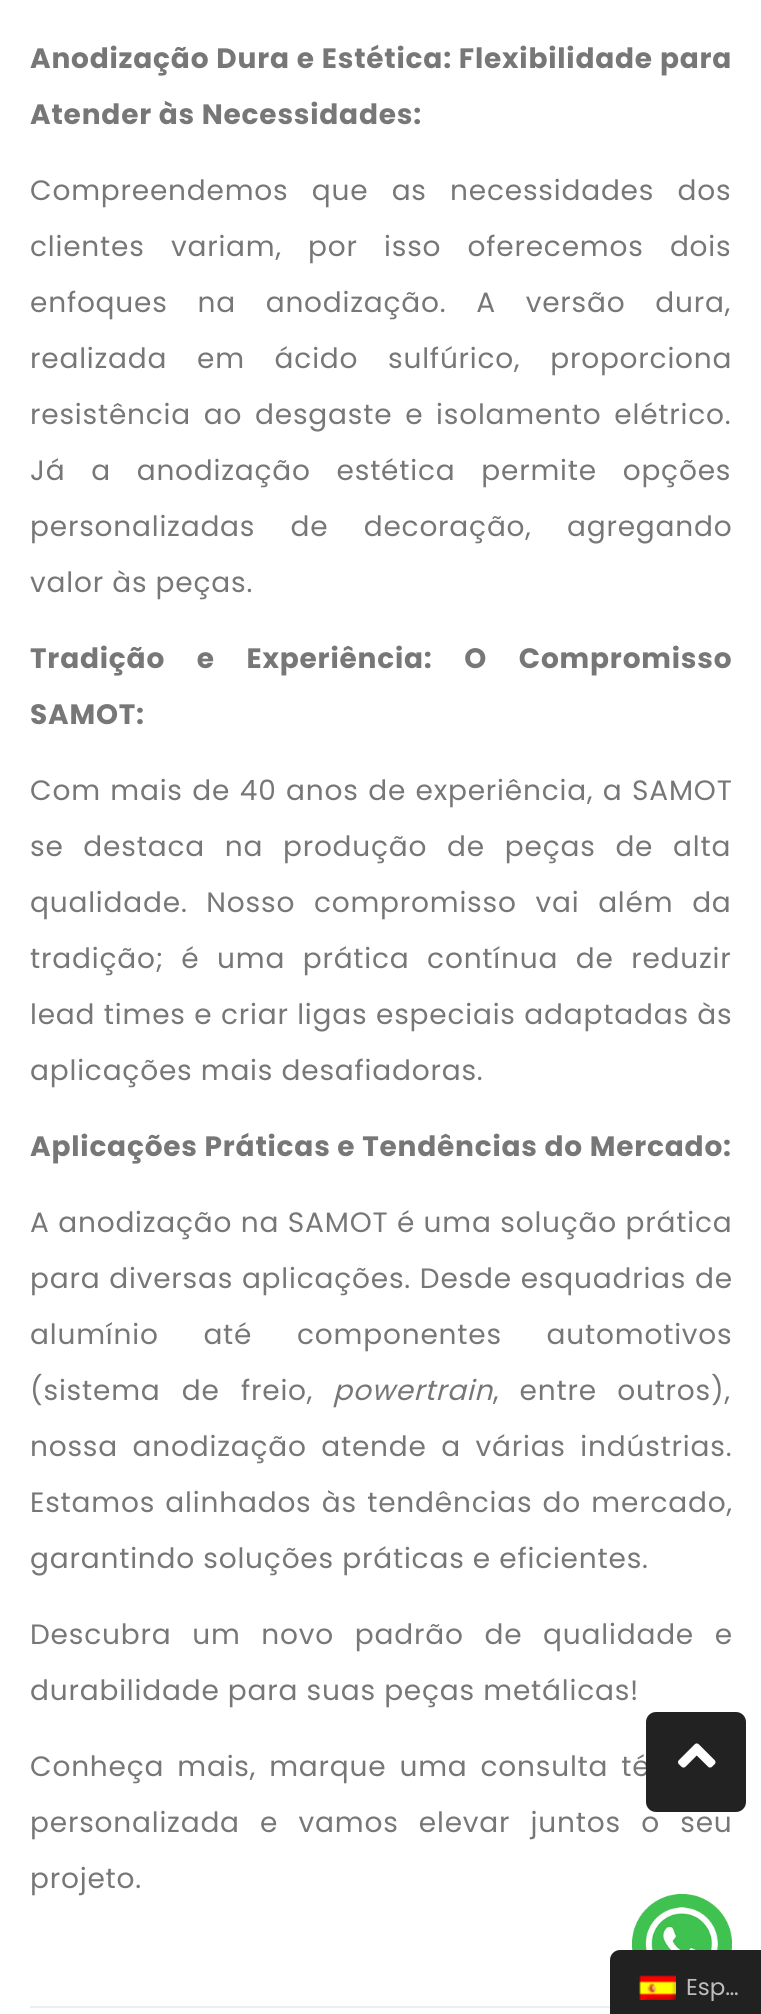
#include <cairo.h>
#include <math.h>
#include <stddef.h>

static cairo_t *c;
static void C(unsigned color){cairo_set_source_rgb(c, (color >> 16) / 255.0, (color >> 8 & 255) / 255.0, (color & 255) / 255.0);}
static void F(const char *family, double size, int italic, int bold){cairo_select_font_face(c, family, italic ? CAIRO_FONT_SLANT_ITALIC : CAIRO_FONT_SLANT_NORMAL,bold ? CAIRO_FONT_WEIGHT_BOLD : CAIRO_FONT_WEIGHT_NORMAL);cairo_set_font_size(c, size);}
static void T(double x, double y, const char *s){cairo_move_to(c, x, y);cairo_show_text(c, s);}
static void L(double x, double y, const char *s, double letter, double word){cairo_move_to(c, x, y);while (*s) {char ch[5] = {0};int n = 0;do ch[n++] = *s++; while ((*s & 0xC0) == 0x80);cairo_show_text(c, ch);cairo_rel_move_to(c, letter + word * (*ch == ' '), 0);}}
static void R(double x, double y, double w, double h){cairo_rectangle(c, x, y, w, h);cairo_fill(c);}
static void Q(double x, double y, double w, double h, double r){cairo_new_sub_path(c);cairo_arc(c, x + w - r, y + h - r, r, 0, M_PI / 2);cairo_arc(c, x + r, y + h - r, r, M_PI / 2, M_PI);cairo_arc(c, x + r, y + r, r, M_PI, 1.5 * M_PI);cairo_arc(c, x + w - r, y + r, r, 1.5 * M_PI, 2 * M_PI);cairo_close_path(c);}
static void I(const char *path, double x, double y, double w, double h){cairo_surface_t *image = cairo_image_surface_create_from_png(path);cairo_save(c);cairo_set_source_surface(c, image, x, y);cairo_rectangle(c, x, y, w, h);cairo_fill(c);cairo_restore(c);cairo_surface_destroy(image);}
int main(void) {
cairo_surface_t *surface = cairo_image_surface_create(CAIRO_FORMAT_RGB24, 761, 2014);
c = cairo_create(surface);
cairo_font_options_t *options = cairo_font_options_create();
cairo_font_options_set_hint_metrics(options, CAIRO_HINT_METRICS_OFF);
cairo_font_options_set_hint_style(options, CAIRO_HINT_STYLE_NONE);
cairo_set_font_options(c, options);
cairo_set_miter_limit(c, 4);
C(0xffffff);
cairo_paint(c);
C(0xeeeeee);
R(30,2006,580,2);
F("Poppins",28,0,1);
C(0x777777);
L(30,68,"Anodização Dura e Estética: Flexibilidade para",.8,.25);
L(30,124,"Atender às Necessidades:",.8,0);
F("Poppins",28,0,0);
L(30,200,"Compreendemos que as necessidades dos",.8,15);
L(30,256,"clientes variam, por isso oferecemos dois",.8,18);
L(30,312,"enfoques na anodização. A versão dura,",.8,21.5);
L(30,368,"realizada em ácido sulfúrico, proporciona",.8,21.5);
L(30,424,"resistência ao desgaste e isolamento elétrico.",.8,4.5);
L(30,480,"Já a anodização estética permite opções",.8,17.5);
L(30,536,"personalizadas de decoração, agregando",.8,27);
L(30,592,"valor às peças.",.8,0);
F("Poppins",28,0,1);
L(30,668,"Tradição e Experiência: O Compromisso",.8,25);
L(30,724,"SAMOT:",.8,0);
F("Poppins",28,0,0);
L(30,800,"Com mais de 40 anos de experiência, a SAMOT",.8,1.25);
L(30,856,"se destaca na produção de peças de alta",.8,11.5);
L(30,912,"qualidade. Nosso compromisso vai além da",.8,10.5);
L(30,968,"tradição; é uma prática contínua de reduzir",.8,9.25);
L(30,1024,"lead times e criar ligas especiais adaptadas às",.8,.25);
L(30,1080,"aplicações mais desafiadoras.",.8,0);
F("Poppins",28,0,1);
L(30,1156,"Aplicações Práticas e Tendências do Mercado:",.8,0);
F("Poppins",28,0,0);
L(30,1232,"A anodização na SAMOT é uma solução prática",.8,.25);
L(30,1288,"para diversas aplicações. Desde esquadrias de",.8,.5);
L(30,1344,"alumínio até componentes automotivos",.8,36.5);
L(30,1400,"(sistema de freio,",.8,13);
F("Poppins",28,1,0);
L(333,1400,"powertrain",.8,0);
F("Poppins",28,0,0);
L(493,1400,", entre outros),",.8,12);
L(30,1456,"nossa anodização atende a várias indústrias.",.8,6.25);
L(30,1512,"Estamos alinhados às tendências do mercado,",.8,2);
L(30,1568,"garantindo soluções práticas e eficientes.",.8,0);
L(30,1644,"Descubra um novo padrão de qualidade e",.8,12.5);
L(30,1700,"durabilidade para suas peças metálicas!",.8,0);
L(30,1776,"Conheça mais, marque uma consulta té",.8,4.75);
L(30,1832,"personalizada e vamos elevar juntos o seu",.8,12);
L(30,1888,"projeto.",.8,0);
C(0x222222);
Q(646,1712,100,100,10);
cairo_fill(c);
I("1.png",678,1743,38,25);
I("2.png",632,1894,100,56);
C(0x212121);
cairo_new_path(c);
cairo_move_to(c,620,1950);
cairo_line_to(c,761,1950);
cairo_curve_to(c,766.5,1950,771,1954.5,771,1960);
cairo_line_to(c,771,2014);
cairo_line_to(c,610,2014);
cairo_line_to(c,610,1960);
cairo_curve_to(c,610,1954.5,614.5,1950,620,1950);
cairo_close_path(c);
cairo_fill(c);
I("3.png",639,1975,37,25);
F("Poppins",23,0,0);
C(0xbdbdbd);
T(686,1995,"Esp…");
cairo_surface_write_to_png(surface, "o.png");
cairo_font_options_destroy(options);
cairo_destroy(c);
cairo_surface_destroy(surface);
return 0;
}
